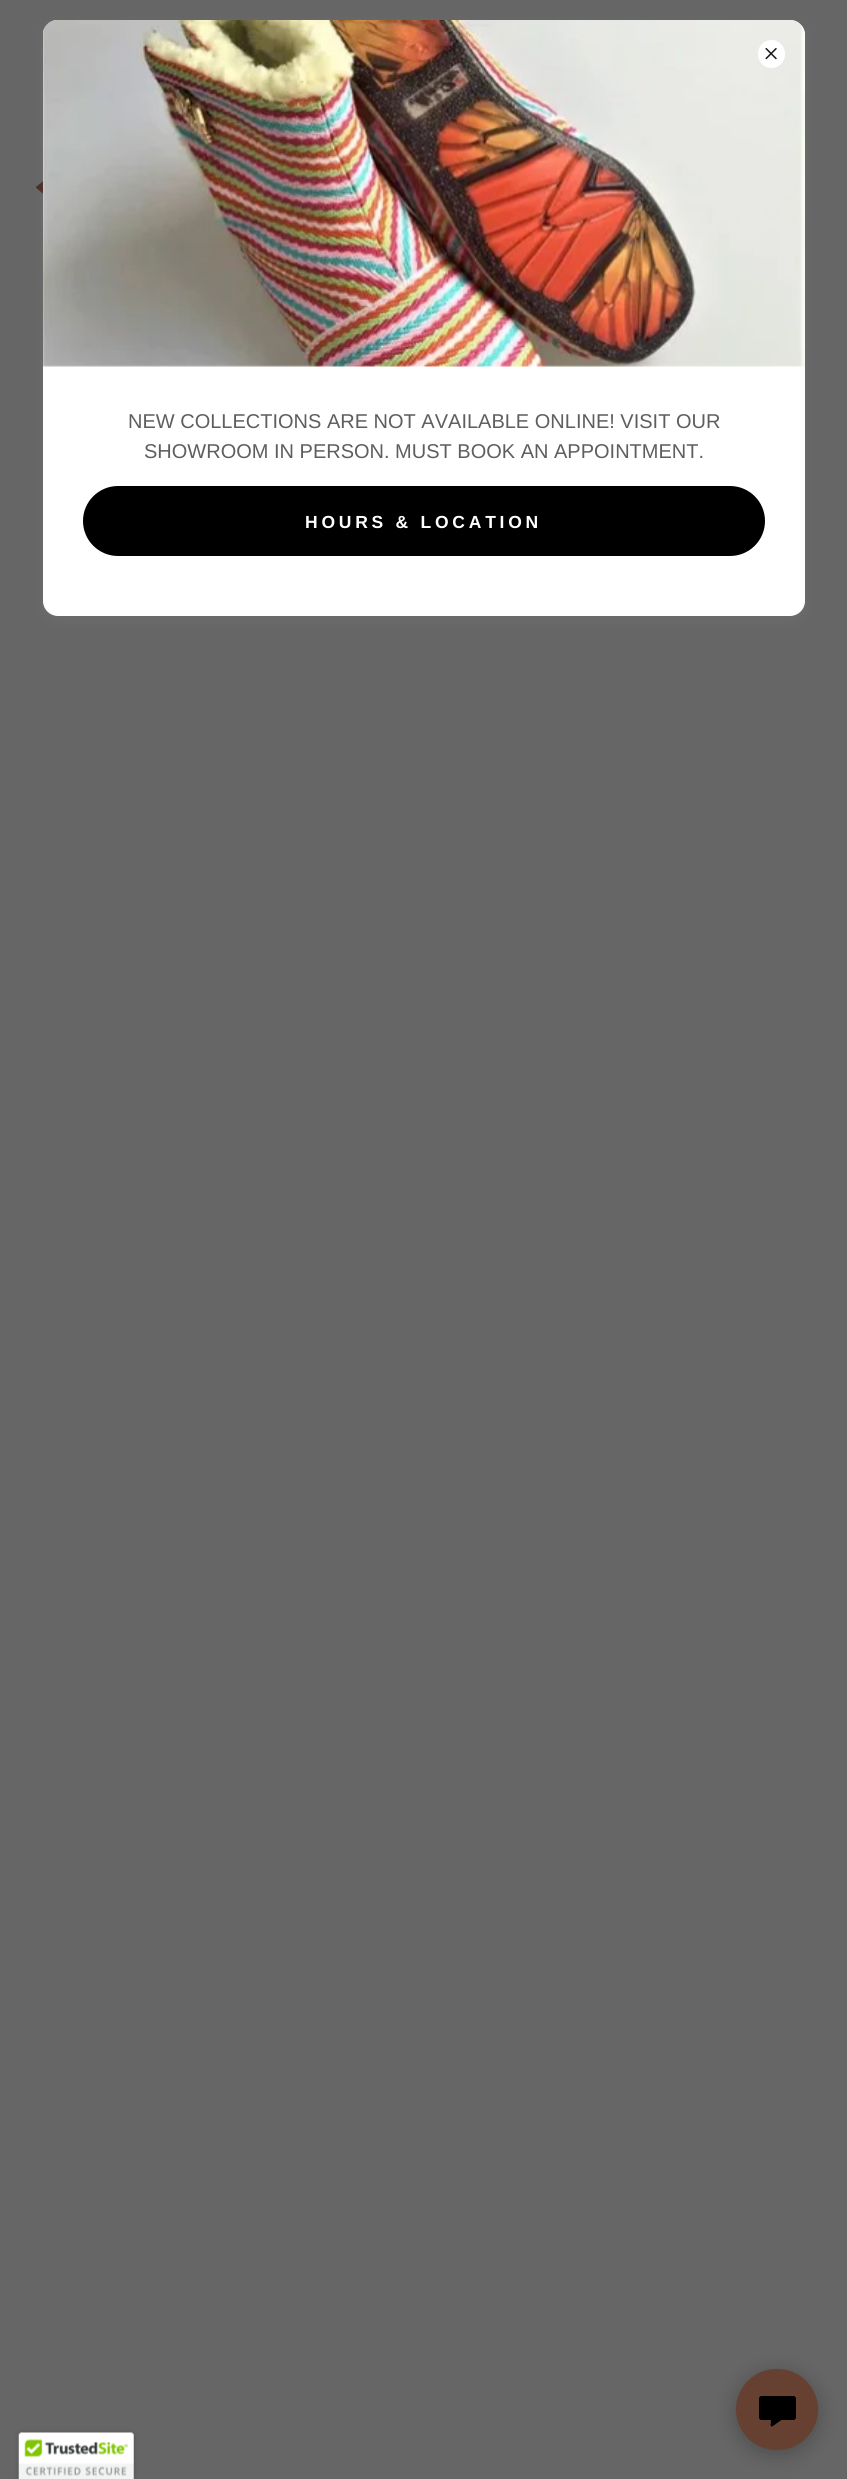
#include <cairo.h>
#include <math.h>
#include <stddef.h>

static cairo_t *c;
static void C(unsigned color){cairo_set_source_rgb(c, (color >> 16) / 255.0, (color >> 8 & 255) / 255.0, (color & 255) / 255.0);}
static void F(const char *family, double size, int italic, int bold){cairo_select_font_face(c, family, italic ? CAIRO_FONT_SLANT_ITALIC : CAIRO_FONT_SLANT_NORMAL,bold ? CAIRO_FONT_WEIGHT_BOLD : CAIRO_FONT_WEIGHT_NORMAL);cairo_set_font_size(c, size);}
static void T(double x, double y, const char *s){cairo_move_to(c, x, y);cairo_show_text(c, s);}
static void L(double x, double y, const char *s, double letter, double word){cairo_move_to(c, x, y);while (*s) {char ch[5] = {0};int n = 0;do ch[n++] = *s++; while ((*s & 0xC0) == 0x80);cairo_show_text(c, ch);cairo_rel_move_to(c, letter + word * (*ch == ' '), 0);}}
static void Q(double x, double y, double w, double h, double r){cairo_new_sub_path(c);cairo_arc(c, x + w - r, y + h - r, r, 0, M_PI / 2);cairo_arc(c, x + r, y + h - r, r, M_PI / 2, M_PI);cairo_arc(c, x + r, y + r, r, M_PI, 1.5 * M_PI);cairo_arc(c, x + w - r, y + r, r, 1.5 * M_PI, 2 * M_PI);cairo_close_path(c);}
static void S(double x, double y, double w, double h, double r, double blur, double alpha){cairo_push_group_with_content(c, CAIRO_CONTENT_ALPHA);cairo_set_operator(c, CAIRO_OPERATOR_SOURCE);for (int i = 15; i >= -15 && fmin(w, h) + blur * i / 3 > 0; i -= 2) {double e = blur * i / 6;cairo_set_source_rgba(c, 0, 0, 0, alpha * erfc((i - 1) / 8.5) / 2);Q(x - e, y - e, w + 2 * e, h + 2 * e, fmax(0, fmin(r + e + blur * .6, fmin(w, h) / 2 + e)));cairo_fill(c);}cairo_pattern_t *soft = cairo_pop_group(c);cairo_mask(c, soft);cairo_pattern_destroy(soft);}
static void I(const char *path, double x, double y, double w, double h){cairo_surface_t *image = cairo_image_surface_create_from_png(path);cairo_save(c);cairo_set_source_surface(c, image, x, y);cairo_rectangle(c, x, y, w, h);cairo_fill(c);cairo_restore(c);cairo_surface_destroy(image);}
int main(void) {
cairo_surface_t *surface = cairo_image_surface_create(CAIRO_FORMAT_RGB24, 847, 2479);
c = cairo_create(surface);
cairo_font_options_t *options = cairo_font_options_create();
cairo_font_options_set_hint_metrics(options, CAIRO_HINT_METRICS_OFF);
cairo_font_options_set_hint_style(options, CAIRO_HINT_STYLE_NONE);
cairo_set_font_options(c, options);
cairo_set_miter_limit(c, 4);
C(0x666666);
cairo_paint(c);
I("1.png",35,181,8,13);
C(0x757575);
S(43,25,762,596,15,7.5,.4);
C(0xffffff);
Q(43,20,762,596,15);
cairo_fill(c);
I("3.png",43,20,762,347);
Q(758,40,27,28,13.5);
cairo_fill(c);
I("2.png",765,48,12,12);
F("Liberation Sans",20,0,0);
C(0x5e5e5e);
T(128,428,"NEW COLLECTIONS ARE NOT AVAILABLE ONLINE! VISIT OUR");
T(144,458,"SHOWROOM IN PERSON. MUST BOOK AN APPOINTMENT.");
C(0x000000);
Q(83,486,682,70,35);
cairo_fill(c);
F("Liberation Sans",17.5,0,1);
C(0xffffff);
L(305,528,"HOURS & LOCATION",3.75,0);
C(0x000000);
S(736,2373,82,81,40.5,11,.25);
C(0x664031);
Q(736,2369,82,81,40.5);
cairo_fill(c);
I("4.png",759,2396,37,31);
C(0x000000);
S(19,2433,115,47,2.5,3,.2);
I("5.png",18,2432,116,47);
cairo_surface_write_to_png(surface, "o.png");
cairo_font_options_destroy(options);
cairo_destroy(c);
cairo_surface_destroy(surface);
return 0;
}
